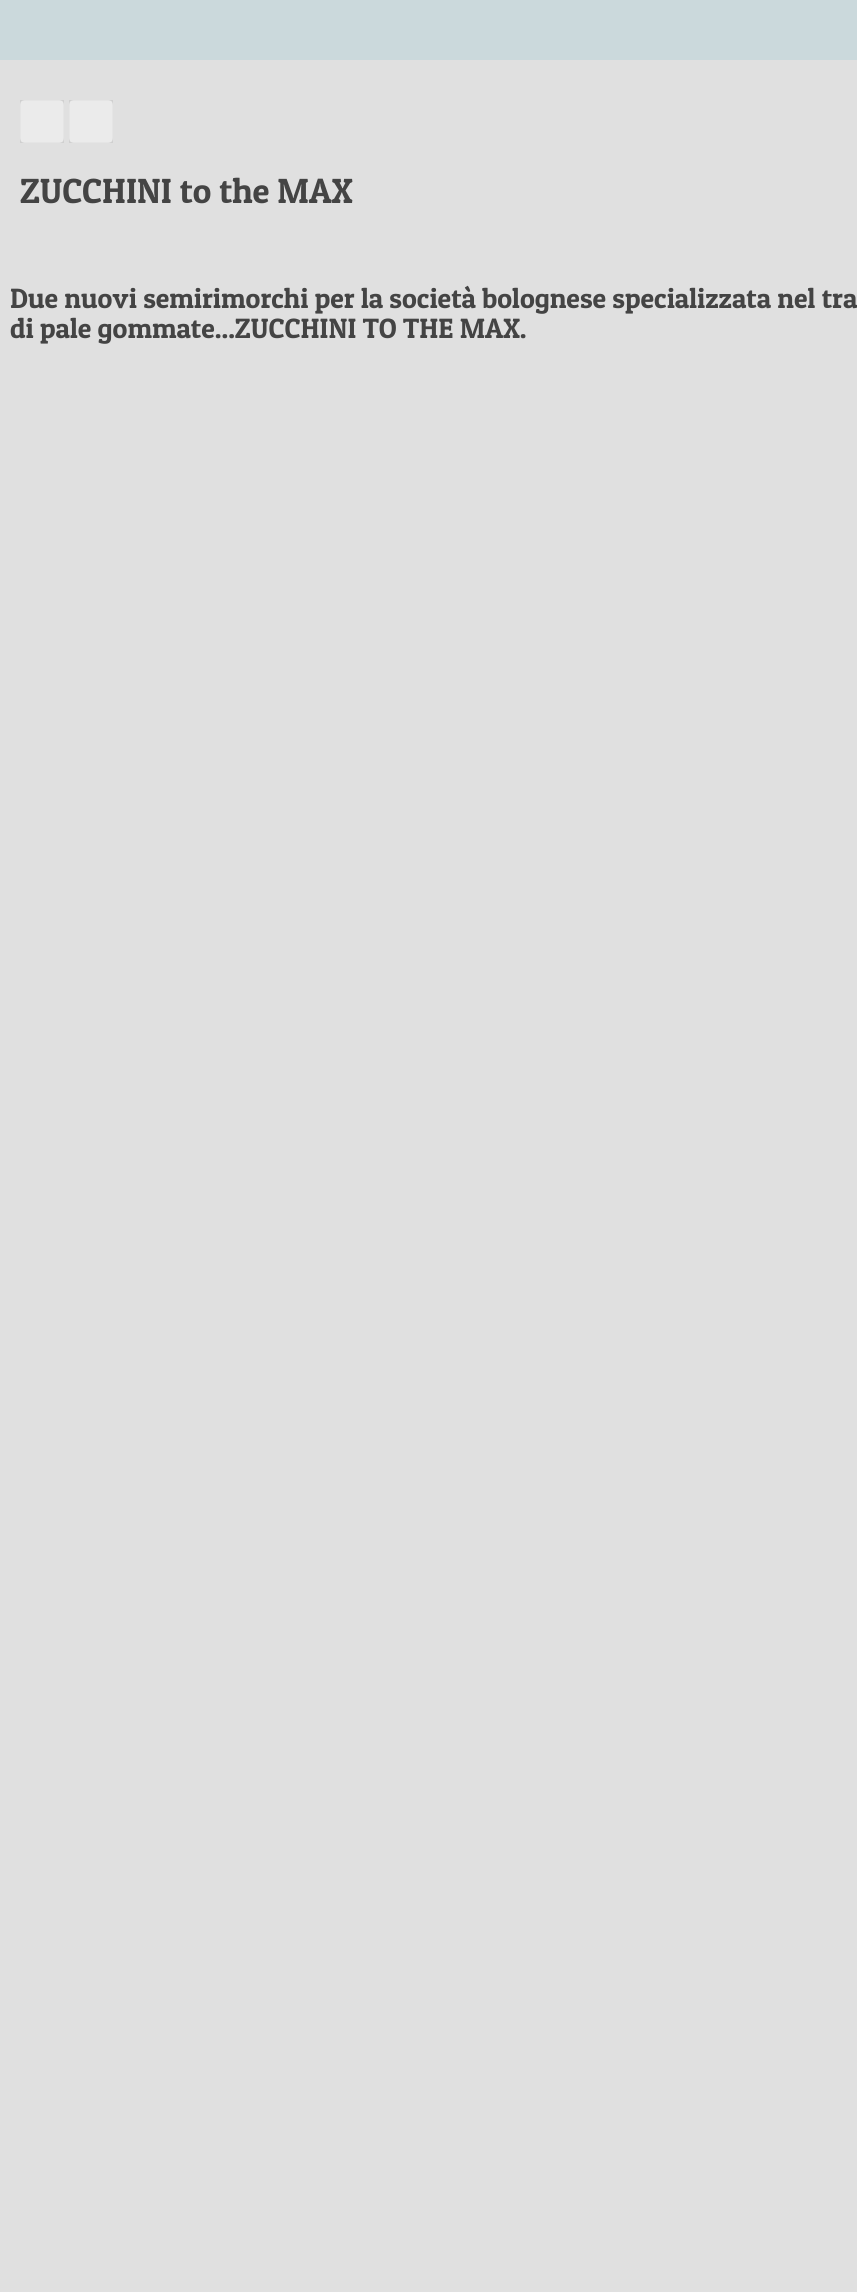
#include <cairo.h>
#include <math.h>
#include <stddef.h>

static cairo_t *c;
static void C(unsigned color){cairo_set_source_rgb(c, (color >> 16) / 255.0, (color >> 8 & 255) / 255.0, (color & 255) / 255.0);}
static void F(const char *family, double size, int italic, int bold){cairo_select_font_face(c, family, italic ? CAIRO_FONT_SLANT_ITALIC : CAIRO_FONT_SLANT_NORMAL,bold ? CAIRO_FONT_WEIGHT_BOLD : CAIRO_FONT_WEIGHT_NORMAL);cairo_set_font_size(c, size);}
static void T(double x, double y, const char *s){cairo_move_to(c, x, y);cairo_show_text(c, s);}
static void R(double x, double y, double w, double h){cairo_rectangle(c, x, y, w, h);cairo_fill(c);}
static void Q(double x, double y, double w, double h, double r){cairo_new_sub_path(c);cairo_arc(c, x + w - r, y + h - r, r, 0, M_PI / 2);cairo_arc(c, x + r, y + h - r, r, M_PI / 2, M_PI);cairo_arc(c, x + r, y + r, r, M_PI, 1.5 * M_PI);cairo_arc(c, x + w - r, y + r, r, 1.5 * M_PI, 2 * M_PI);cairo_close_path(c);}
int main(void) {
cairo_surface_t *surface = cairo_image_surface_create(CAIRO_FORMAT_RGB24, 857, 2292);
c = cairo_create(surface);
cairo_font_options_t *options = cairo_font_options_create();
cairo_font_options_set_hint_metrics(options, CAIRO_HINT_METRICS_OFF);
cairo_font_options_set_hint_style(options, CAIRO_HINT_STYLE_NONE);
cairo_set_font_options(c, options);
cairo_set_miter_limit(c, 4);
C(0xe0e0e0);
cairo_paint(c);
C(0xcbd9dc);
R(0,0,857,60);
C(0xf7f7f7);
Q(20,100,44,43,5);
cairo_fill(c);
cairo_rectangle(c,20.5,100.5,43,42);
cairo_set_source_rgba(c,0,0,0,0.03);
cairo_set_line_width(c,1);
cairo_stroke(c);
cairo_set_source_rgba(c,0,0,0,0.05);
R(20,100,44,43);
C(0xf7f7f7);
Q(69,100,44,43,5);
cairo_fill(c);
cairo_rectangle(c,69.5,100.5,43,42);
cairo_set_source_rgba(c,0,0,0,0.03);
cairo_stroke(c);
cairo_set_source_rgba(c,0,0,0,0.05);
R(69,100,44,43);
F("Patua One",35,0,0);
C(0x444444);
T(20,203,"ZUCCHINI to the MAX");
F("Patua One",28,0,0);
T(10,308,"Due nuovi semirimorchi per la società bolognese specializzata nel tra");
T(10,338,"di pale gommate...ZUCCHINI TO THE MAX.");
cairo_surface_write_to_png(surface, "o.png");
cairo_font_options_destroy(options);
cairo_destroy(c);
cairo_surface_destroy(surface);
return 0;
}
